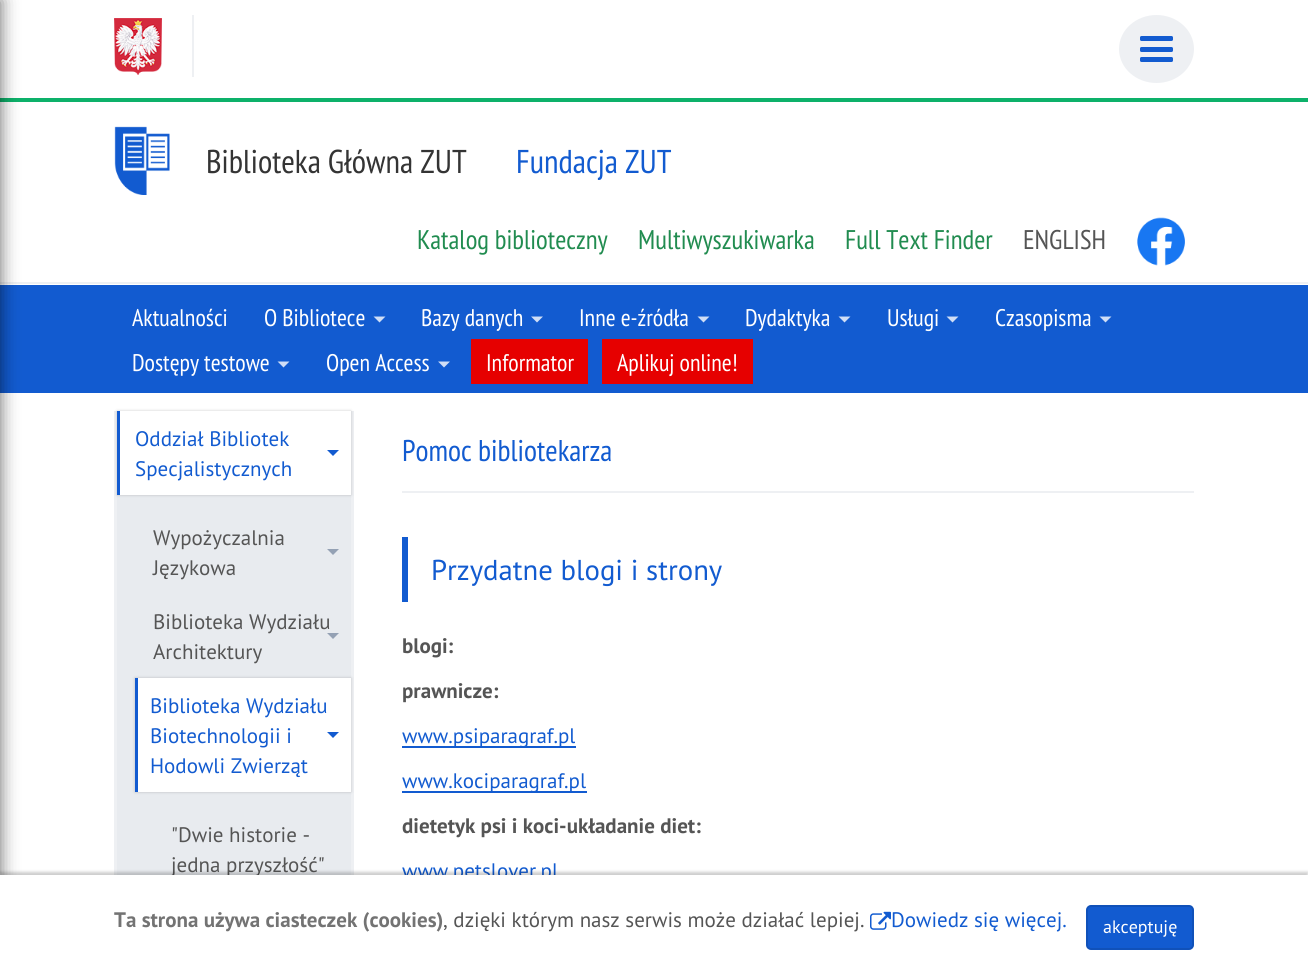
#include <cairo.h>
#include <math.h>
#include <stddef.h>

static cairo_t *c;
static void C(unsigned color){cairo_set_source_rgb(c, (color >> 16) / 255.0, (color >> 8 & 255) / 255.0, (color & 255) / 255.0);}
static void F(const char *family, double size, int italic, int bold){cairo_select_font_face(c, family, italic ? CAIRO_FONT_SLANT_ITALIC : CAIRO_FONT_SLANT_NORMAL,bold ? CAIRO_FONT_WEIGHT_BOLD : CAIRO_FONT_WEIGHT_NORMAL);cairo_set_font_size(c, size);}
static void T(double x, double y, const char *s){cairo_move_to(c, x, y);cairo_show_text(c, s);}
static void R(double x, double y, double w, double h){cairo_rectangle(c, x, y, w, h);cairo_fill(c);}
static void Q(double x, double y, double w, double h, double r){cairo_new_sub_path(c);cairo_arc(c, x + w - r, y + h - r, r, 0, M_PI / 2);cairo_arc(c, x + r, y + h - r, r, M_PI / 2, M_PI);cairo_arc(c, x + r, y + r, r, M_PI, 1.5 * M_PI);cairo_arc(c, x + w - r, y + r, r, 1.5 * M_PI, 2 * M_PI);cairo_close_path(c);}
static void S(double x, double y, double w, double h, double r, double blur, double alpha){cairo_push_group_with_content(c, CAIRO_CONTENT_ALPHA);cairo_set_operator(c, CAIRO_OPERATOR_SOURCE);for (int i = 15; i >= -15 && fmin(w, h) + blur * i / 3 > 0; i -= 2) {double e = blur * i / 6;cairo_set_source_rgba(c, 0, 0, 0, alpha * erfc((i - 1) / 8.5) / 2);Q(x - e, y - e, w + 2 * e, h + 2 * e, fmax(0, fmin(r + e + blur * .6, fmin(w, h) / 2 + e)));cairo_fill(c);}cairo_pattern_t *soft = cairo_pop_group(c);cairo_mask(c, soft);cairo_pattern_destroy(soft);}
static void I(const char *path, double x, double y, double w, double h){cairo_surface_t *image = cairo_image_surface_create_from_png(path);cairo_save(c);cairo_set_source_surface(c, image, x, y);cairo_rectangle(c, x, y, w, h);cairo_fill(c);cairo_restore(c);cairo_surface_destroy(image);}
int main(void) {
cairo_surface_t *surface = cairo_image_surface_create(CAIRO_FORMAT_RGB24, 1308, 979);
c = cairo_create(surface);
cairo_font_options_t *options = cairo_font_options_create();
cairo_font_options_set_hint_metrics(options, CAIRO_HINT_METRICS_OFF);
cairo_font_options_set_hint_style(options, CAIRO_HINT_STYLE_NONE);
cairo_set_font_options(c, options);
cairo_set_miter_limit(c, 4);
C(0xffffff);
cairo_paint(c);
I("1.png",114,18,48,57);
C(0xeef0f3);
R(192,15,2,62);
cairo_new_path(c);
cairo_move_to(c,1156.5,15);
cairo_curve_to(c,1177,15,1194,30,1194,49);
cairo_curve_to(c,1194,68,1177,83,1156.5,83);
cairo_curve_to(c,1136,83,1119,68,1119,49);
cairo_curve_to(c,1119,30,1136,15,1156.5,15);
cairo_close_path(c);
cairo_fill(c);
C(0x125bd0);
Q(1140,36,33,5,1.5);
cairo_fill(c);
Q(1140,47,33,5,1.5);
cairo_fill(c);
Q(1140,57,33,5,1.5);
cairo_fill(c);
C(0x0db16a);
R(0,98,1308,4);
C(0xeef0f3);
R(0,282,1308,2);
C(0x125bd0);
R(0,285,1308,108);
C(0x000000);
S(-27,0,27,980,0,9,.6);
I("2.png",114,126,56,69);
F("PT Sans Narrow",33,0,0);
C(0x343434);
T(206,173,"Biblioteka Główna ZUT");
C(0x125bd0);
T(516,173,"Fundacja ZUT");
F("PT Sans Narrow",27,0,0);
C(0x218c50);
T(417,249,"Katalog biblioteczny");
T(638,249,"Multiwyszukiwarka");
T(845,249,"Full Text Finder");
C(0x555555);
T(1023,249,"ENGLISH");
I("3.png",1137,217,48,49);
F("PT Sans Narrow",24,0,0);
C(0xffffff);
T(132,326,"Aktualności");
T(264,326,"O Bibliotece");
C(0xd0def6);
cairo_new_path(c);
cairo_move_to(c,373.5,316.5);
cairo_line_to(c,385.5,316.5);
cairo_line_to(c,379.5,322.5);
cairo_close_path(c);
cairo_fill(c);
C(0xffffff);
T(421,326,"Bazy danych");
C(0xd0def6);
cairo_new_path(c);
cairo_move_to(c,531,316.5);
cairo_line_to(c,543,316.5);
cairo_line_to(c,537,322.5);
cairo_close_path(c);
cairo_fill(c);
C(0xffffff);
T(579,326,"Inne e-źródła");
C(0xd0def6);
cairo_new_path(c);
cairo_move_to(c,697.5,316.5);
cairo_line_to(c,709.5,316.5);
cairo_line_to(c,703.5,322.5);
cairo_close_path(c);
cairo_fill(c);
C(0xffffff);
T(745,326,"Dydaktyka");
C(0xd0def6);
cairo_new_path(c);
cairo_move_to(c,838.5,316.5);
cairo_line_to(c,850.5,316.5);
cairo_line_to(c,844.5,322.5);
cairo_close_path(c);
cairo_fill(c);
C(0xffffff);
T(887,326,"Usługi");
C(0xd0def6);
cairo_new_path(c);
cairo_move_to(c,946.5,316.5);
cairo_line_to(c,958.5,316.5);
cairo_line_to(c,952.5,322.5);
cairo_close_path(c);
cairo_fill(c);
C(0xffffff);
T(995,326,"Czasopisma");
C(0xd0def6);
cairo_new_path(c);
cairo_move_to(c,1099.5,316.5);
cairo_line_to(c,1111.5,316.5);
cairo_line_to(c,1105.5,322.5);
cairo_close_path(c);
cairo_fill(c);
C(0xffffff);
T(132,371,"Dostępy testowe");
C(0xd0def6);
cairo_new_path(c);
cairo_move_to(c,277.5,361.5);
cairo_line_to(c,289.5,361.5);
cairo_line_to(c,283.5,367.5);
cairo_close_path(c);
cairo_fill(c);
C(0xffffff);
T(326,371,"Open Access");
C(0xd0def6);
cairo_new_path(c);
cairo_move_to(c,438,361.5);
cairo_line_to(c,450,361.5);
cairo_line_to(c,444,367.5);
cairo_close_path(c);
cairo_fill(c);
C(0xe60000);
R(471,339,117,45);
C(0xffffff);
T(486,371,"Informator");
C(0xe60000);
R(602,339,151,45);
C(0xffffff);
T(617,371,"Aplikuj online!");
C(0xeef0f3);
R(114,411,240,464);
C(0xe8ebef);
R(117,495,234,380);
C(0x000000);
S(117,411,234,84,0,1.5,.2);
C(0xffffff);
R(120,411,231,84);
C(0x125bd0);
R(117,411,3,84);
F("PT Sans",21,0,0);
T(135,446,"Oddział Bibliotek");
cairo_new_path(c);
cairo_move_to(c,327,450);
cairo_line_to(c,339,450);
cairo_line_to(c,333,456);
cairo_close_path(c);
cairo_fill(c);
T(135,476,"Specjalistycznych");
C(0x555555);
T(153,545,"Wypożyczalnia");
C(0x94a1b4);
cairo_new_path(c);
cairo_move_to(c,327,549);
cairo_line_to(c,339,549);
cairo_line_to(c,333,555);
cairo_close_path(c);
cairo_fill(c);
C(0x555555);
T(153,575,"Językowa");
T(153,629,"Biblioteka Wydziału");
C(0x94a1b4);
cairo_new_path(c);
cairo_move_to(c,327,633);
cairo_line_to(c,339,633);
cairo_line_to(c,333,639);
cairo_close_path(c);
cairo_fill(c);
C(0x555555);
T(153,659,"Architektury");
C(0x000000);
S(135,678,216,114,0,1.5,.2);
C(0xffffff);
R(138,678,213,114);
C(0x125bd0);
R(135,678,3,114);
T(150,713,"Biblioteka Wydziału");
T(150,743,"Biotechnologii i");
cairo_new_path(c);
cairo_move_to(c,327,732);
cairo_line_to(c,339,732);
cairo_line_to(c,333,738);
cairo_close_path(c);
cairo_fill(c);
T(150,773,"Hodowli Zwierząt");
C(0x555555);
T(171,842,"\"Dwie historie -");
T(171,872,"jedna przyszłość\"");
C(0xeef0f3);
R(402,491,792,2);
F("PT Sans Narrow",30,0,0);
C(0x125bd0);
T(402,461,"Pomoc bibliotekarza");
R(402,537,6,65);
F("PT Sans",28.75,0,0);
T(431,580,"Przydatne blogi i strony");
F("PT Sans",21,0,1);
C(0x555555);
T(402,653,"blogi:");
T(402,698,"prawnicze:");
C(0x125bd0);
R(402,746,174,2);
F("PT Sans",21,0,0);
T(402,743,"www.psiparagraf.pl");
R(402,791,185,2);
T(402,788,"www.kociparagraf.pl");
F("PT Sans",21,0,1);
C(0x555555);
T(402,833,"dietetyk psi i koci-układanie diet:");
F("PT Sans",21,0,0);
C(0x125bd0);
T(402,878,"www.petslover.pl");
C(0x000000);
S(0,872,1308,105,0,1.5,.2);
C(0xffffff);
R(0,875,1308,104);
F("PT Sans",21,0,1);
C(0x737373);
T(114,927,"Ta strona używa ciasteczek (cookies)");
F("PT Sans",21,0,0);
C(0x555555);
T(443,927,", dzięki którym nasz serwis może działać lepiej.");
I("4.png",870,911,21,19);
C(0x125bd0);
T(891,927,"Dowiedz się więcej.");
Q(1087,906,106,43,4);
cairo_fill_preserve(c);
C(0x1051b9);
cairo_stroke(c);
F("PT Sans",18,0,0);
C(0xffffff);
T(1103,933,"akceptuję");
cairo_surface_write_to_png(surface, "o.png");
cairo_font_options_destroy(options);
cairo_destroy(c);
cairo_surface_destroy(surface);
return 0;
}
